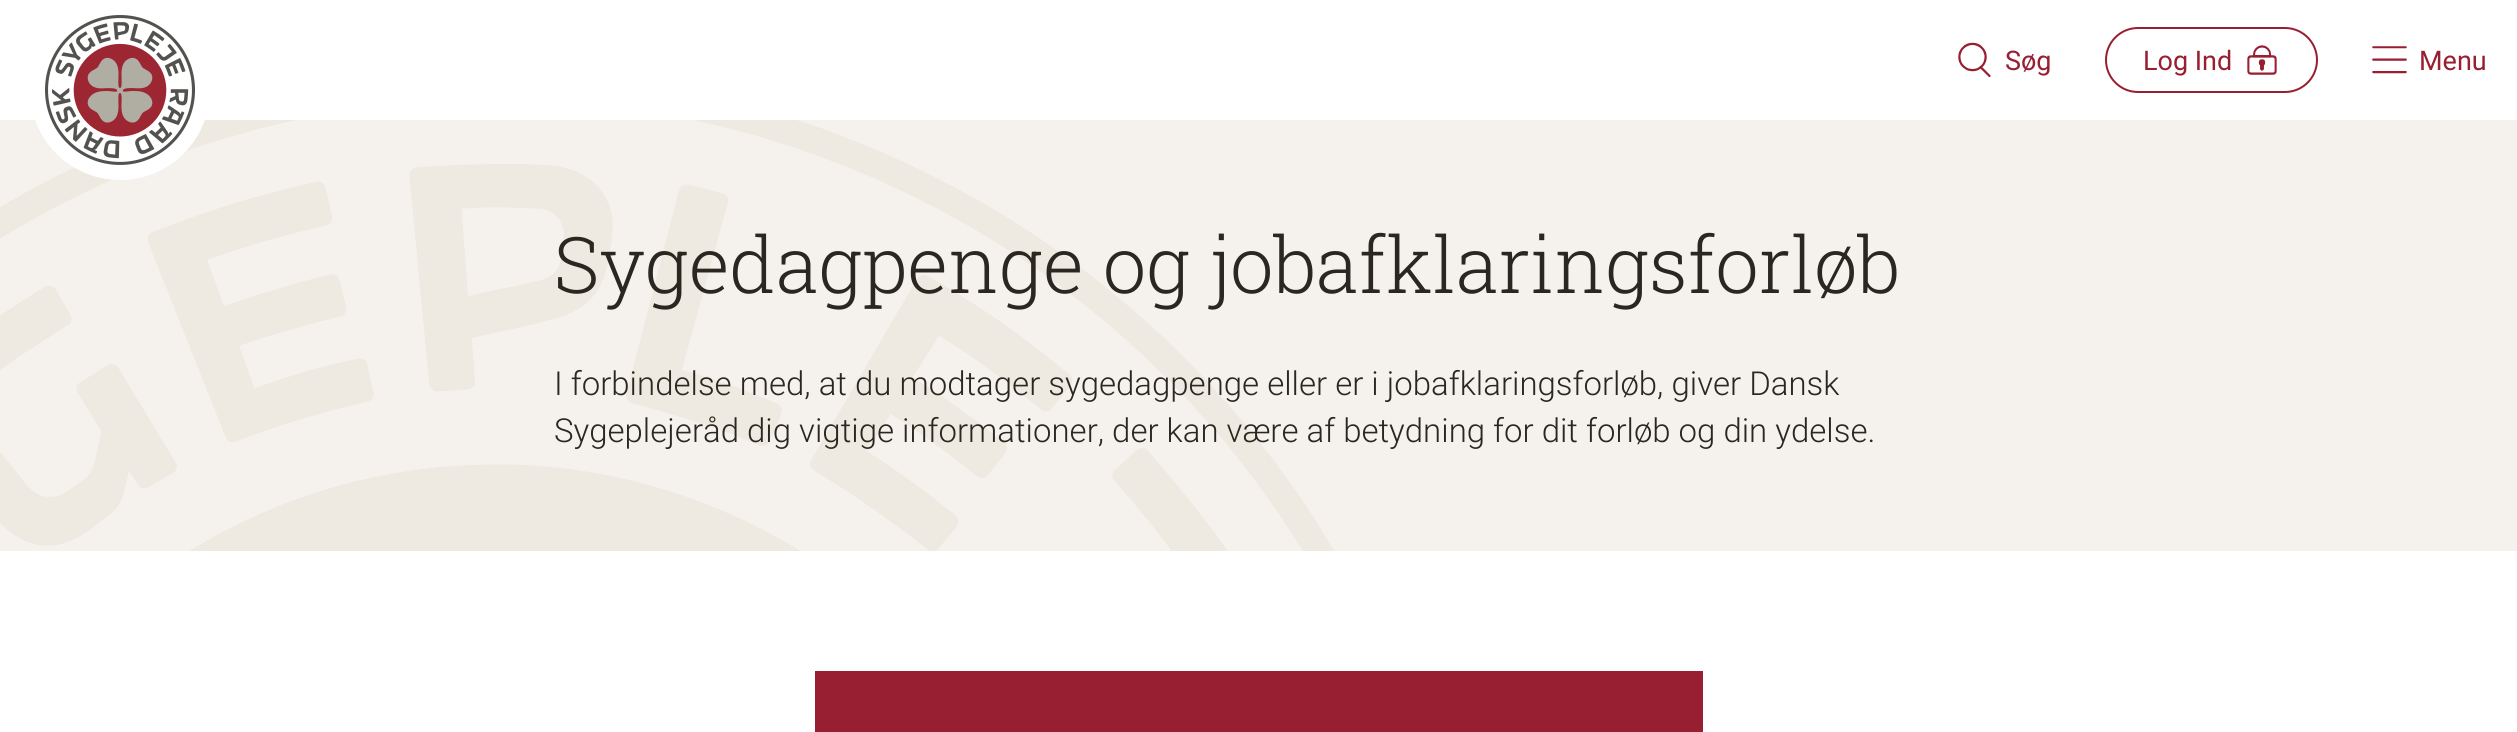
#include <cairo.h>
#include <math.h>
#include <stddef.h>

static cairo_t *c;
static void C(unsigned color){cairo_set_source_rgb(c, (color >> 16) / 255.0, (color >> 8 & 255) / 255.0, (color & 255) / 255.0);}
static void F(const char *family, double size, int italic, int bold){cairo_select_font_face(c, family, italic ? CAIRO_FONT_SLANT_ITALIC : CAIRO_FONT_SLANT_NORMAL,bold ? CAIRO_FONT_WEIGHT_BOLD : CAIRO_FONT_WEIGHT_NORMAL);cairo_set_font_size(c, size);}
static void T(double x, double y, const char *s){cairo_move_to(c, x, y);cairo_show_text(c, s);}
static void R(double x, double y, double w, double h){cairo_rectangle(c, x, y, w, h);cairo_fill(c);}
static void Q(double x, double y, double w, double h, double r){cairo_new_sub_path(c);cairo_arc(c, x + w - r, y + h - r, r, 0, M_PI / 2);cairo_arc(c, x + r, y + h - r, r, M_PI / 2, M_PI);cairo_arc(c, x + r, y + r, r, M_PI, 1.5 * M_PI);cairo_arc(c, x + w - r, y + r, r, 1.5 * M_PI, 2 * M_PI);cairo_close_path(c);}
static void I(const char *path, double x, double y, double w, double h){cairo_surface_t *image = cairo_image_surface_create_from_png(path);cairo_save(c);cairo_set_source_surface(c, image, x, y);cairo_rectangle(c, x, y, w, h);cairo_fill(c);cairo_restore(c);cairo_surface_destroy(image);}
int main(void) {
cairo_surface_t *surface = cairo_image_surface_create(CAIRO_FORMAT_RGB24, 2517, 732);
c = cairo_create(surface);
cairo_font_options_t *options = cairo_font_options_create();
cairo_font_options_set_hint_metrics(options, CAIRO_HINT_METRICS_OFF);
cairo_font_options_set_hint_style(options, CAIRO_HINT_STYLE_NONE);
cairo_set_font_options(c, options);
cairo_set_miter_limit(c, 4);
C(0xffffff);
cairo_paint(c);
C(0xf5f2ed);
R(0,120,2517,431);
I("5.png",0,120,1334,431);
I("1.png",35,15,170,165);
I("2.png",1958,42,33,35);
F("Roboto",27,0,0);
C(0x981e32);
T(2005,70,"Søg");
Q(2106,28,211,64,32);
cairo_stroke(c);
T(2143,70,"Log Ind");
I("3.png",2247,45,30,30);
I("4.png",2372,46,35,28);
T(2419,70,"Menu");
F("Roboto Slab Light",78,0,0);
C(0x29271f);
T(554,293,"Sygedagpenge og jobafklaringsforløb");
F("Roboto Light",33,0,0);
T(554,395,"I forbindelse med, at du modtager sygedagpenge eller er i jobafklaringsforløb, giver Dansk");
T(554,442,"Sygeplejeråd dig vigtige informationer, der kan være af betydning for dit forløb og din ydelse.");
C(0x981e32);
R(815,671,888,61);
cairo_surface_write_to_png(surface, "o.png");
cairo_font_options_destroy(options);
cairo_destroy(c);
cairo_surface_destroy(surface);
return 0;
}
